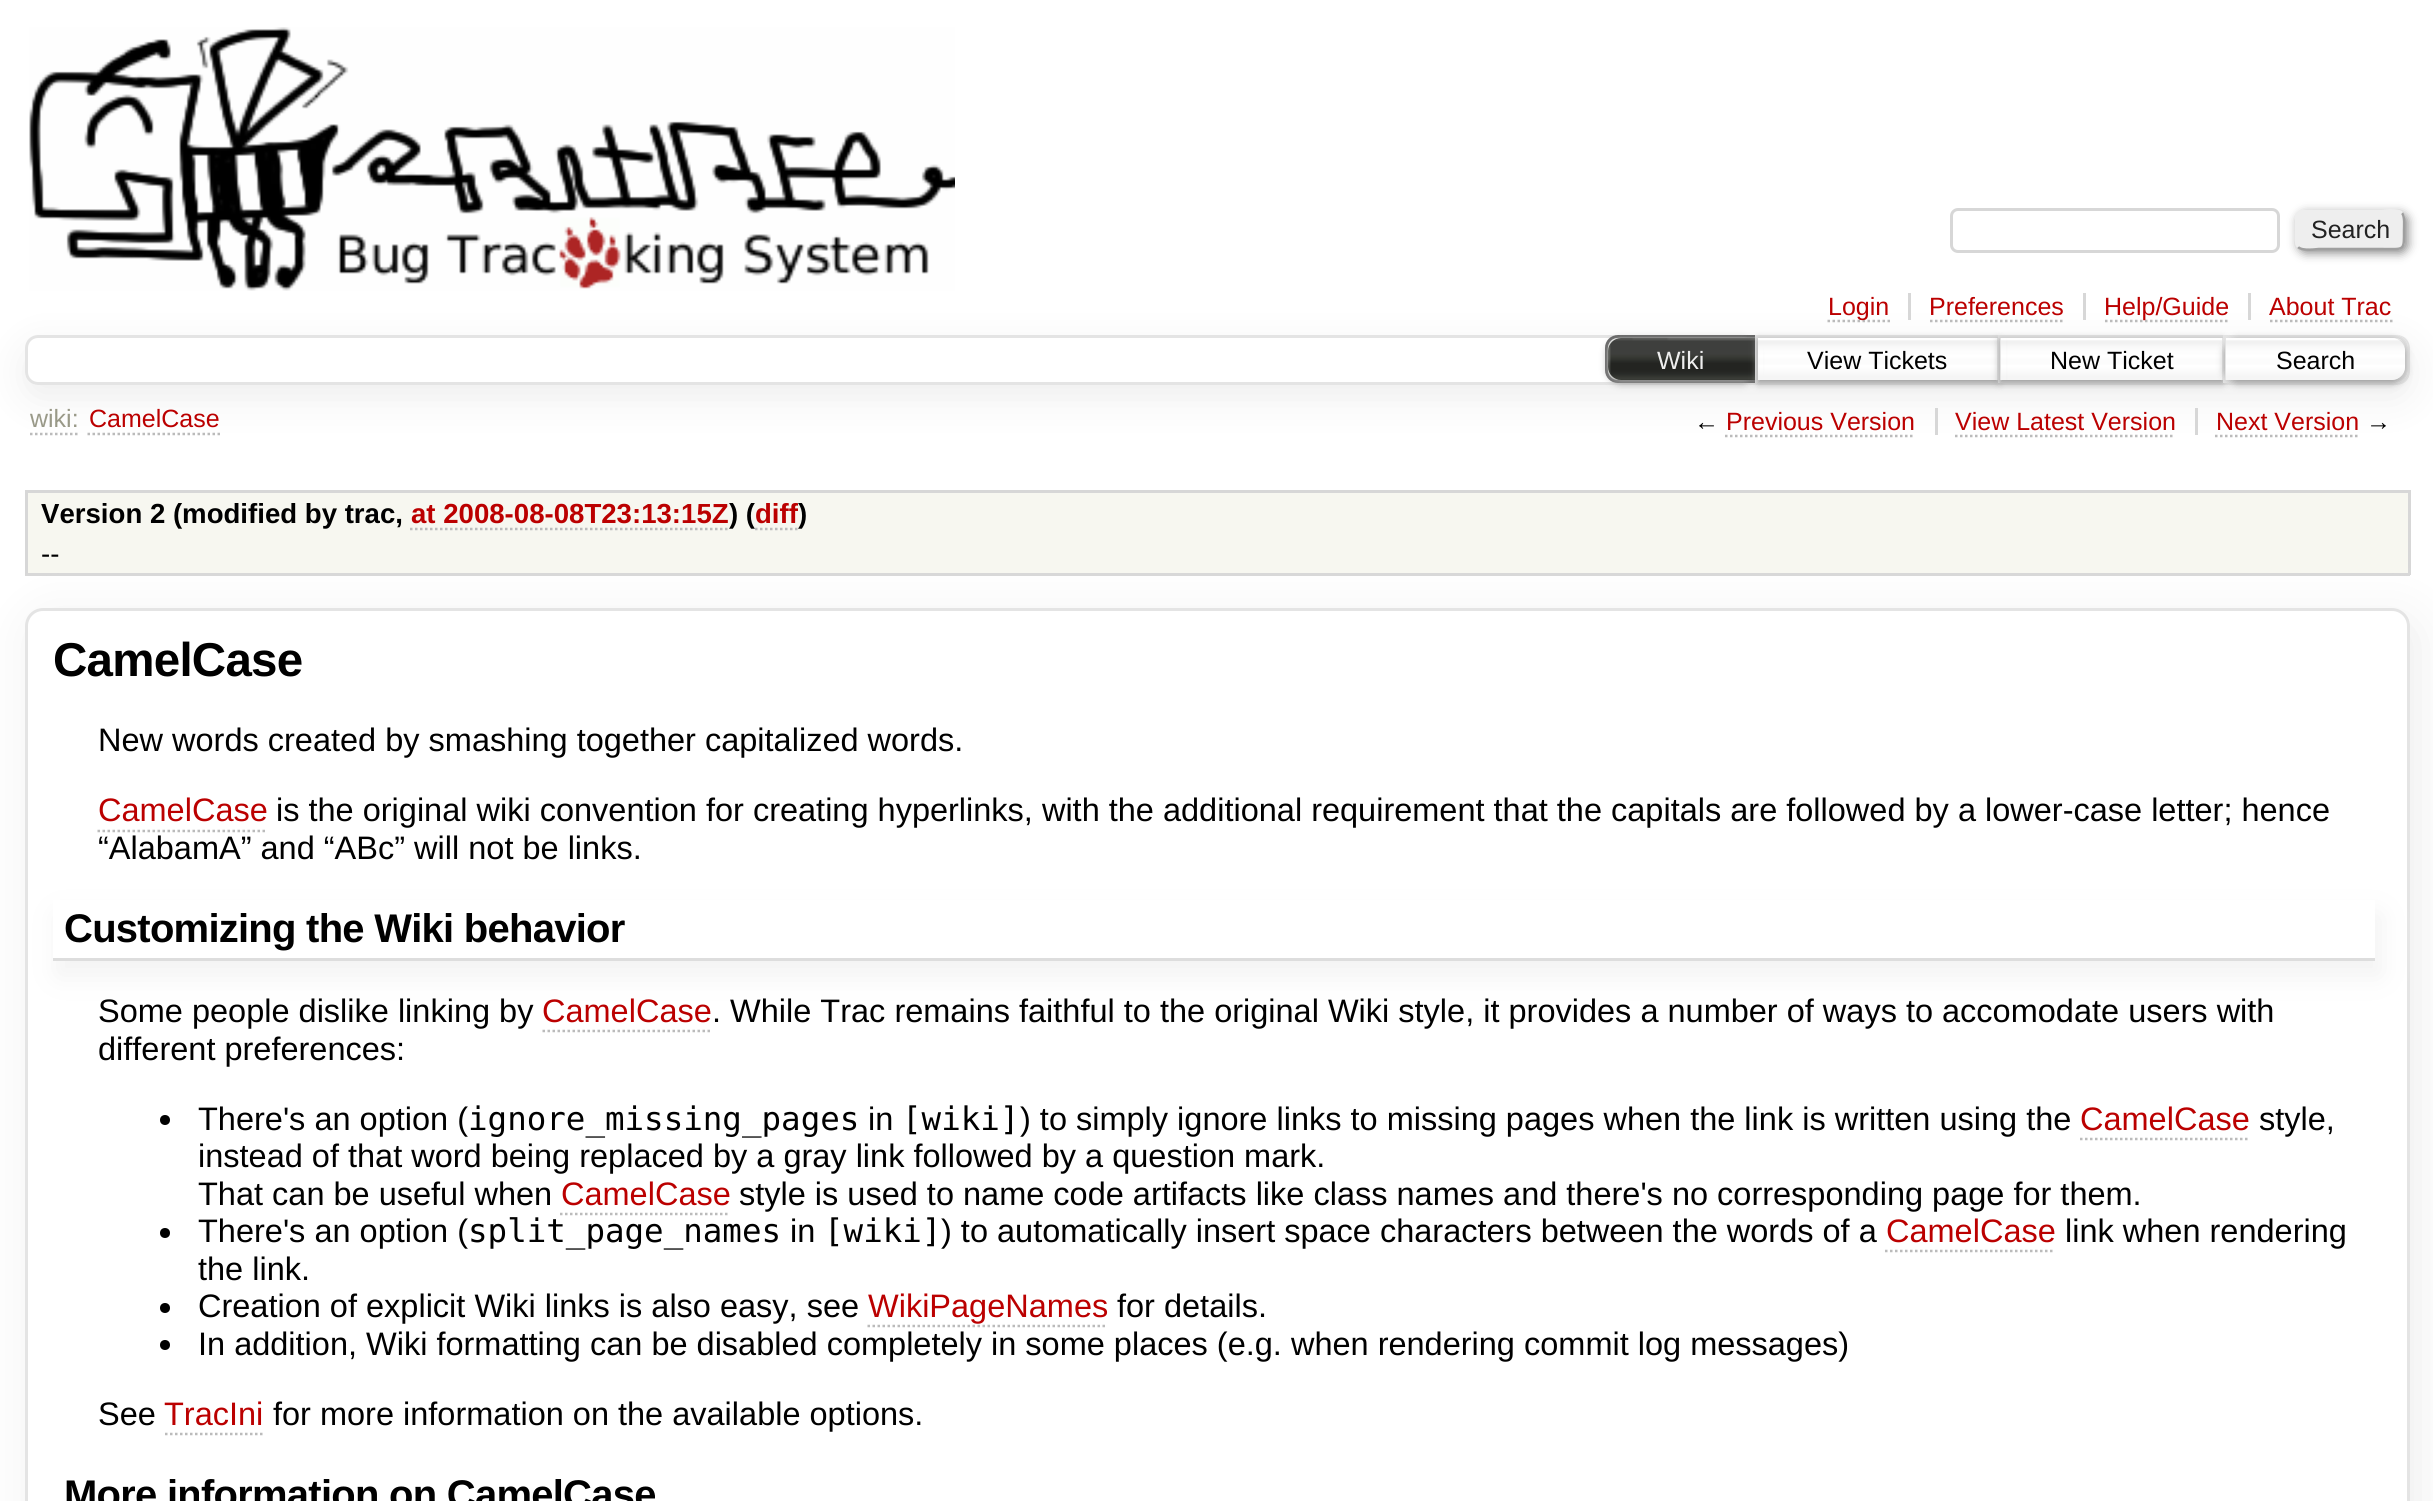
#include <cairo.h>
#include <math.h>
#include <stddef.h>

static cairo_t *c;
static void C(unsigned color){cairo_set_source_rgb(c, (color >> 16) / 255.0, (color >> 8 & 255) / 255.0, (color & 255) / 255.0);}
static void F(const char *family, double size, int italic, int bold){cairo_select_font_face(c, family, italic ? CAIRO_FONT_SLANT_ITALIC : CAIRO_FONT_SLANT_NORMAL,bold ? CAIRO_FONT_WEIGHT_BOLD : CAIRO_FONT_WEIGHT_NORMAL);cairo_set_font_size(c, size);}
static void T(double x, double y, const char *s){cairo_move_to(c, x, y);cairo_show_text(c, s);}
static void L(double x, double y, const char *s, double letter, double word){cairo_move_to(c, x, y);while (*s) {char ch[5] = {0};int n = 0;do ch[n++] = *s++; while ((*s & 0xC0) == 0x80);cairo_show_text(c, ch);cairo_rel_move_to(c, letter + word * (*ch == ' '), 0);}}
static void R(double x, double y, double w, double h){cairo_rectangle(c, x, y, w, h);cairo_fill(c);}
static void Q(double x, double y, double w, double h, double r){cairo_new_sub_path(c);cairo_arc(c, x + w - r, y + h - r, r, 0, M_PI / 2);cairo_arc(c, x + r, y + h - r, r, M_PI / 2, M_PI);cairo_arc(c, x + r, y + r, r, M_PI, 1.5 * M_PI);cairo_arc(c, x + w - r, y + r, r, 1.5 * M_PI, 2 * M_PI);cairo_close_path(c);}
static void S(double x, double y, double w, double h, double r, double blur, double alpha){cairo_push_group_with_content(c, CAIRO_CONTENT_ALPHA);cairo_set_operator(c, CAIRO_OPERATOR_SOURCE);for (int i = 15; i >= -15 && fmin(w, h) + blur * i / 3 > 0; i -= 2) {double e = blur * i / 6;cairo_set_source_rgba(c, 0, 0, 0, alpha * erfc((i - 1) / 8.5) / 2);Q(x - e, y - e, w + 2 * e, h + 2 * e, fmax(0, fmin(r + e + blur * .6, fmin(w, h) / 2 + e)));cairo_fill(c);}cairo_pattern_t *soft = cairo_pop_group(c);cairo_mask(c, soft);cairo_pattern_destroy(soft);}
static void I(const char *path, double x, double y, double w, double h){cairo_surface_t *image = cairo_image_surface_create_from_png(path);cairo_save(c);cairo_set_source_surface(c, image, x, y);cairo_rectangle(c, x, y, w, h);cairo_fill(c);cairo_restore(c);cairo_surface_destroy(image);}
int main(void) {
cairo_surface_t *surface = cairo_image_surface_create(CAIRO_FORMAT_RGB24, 2433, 1501);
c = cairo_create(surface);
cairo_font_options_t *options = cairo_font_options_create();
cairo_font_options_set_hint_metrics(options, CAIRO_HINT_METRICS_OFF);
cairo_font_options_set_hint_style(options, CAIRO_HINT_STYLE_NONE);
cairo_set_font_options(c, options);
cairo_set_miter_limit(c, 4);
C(0xffffff);
cairo_paint(c);
cairo_save(c);
cairo_set_fill_rule(c,CAIRO_FILL_RULE_EVEN_ODD);
cairo_new_path(c);
cairo_move_to(c,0,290);
cairo_line_to(c,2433,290);
cairo_line_to(c,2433,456);
cairo_line_to(c,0,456);
cairo_close_path(c);
cairo_move_to(c,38,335);
cairo_line_to(c,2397,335);
cairo_curve_to(c,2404,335,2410,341,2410,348);
cairo_line_to(c,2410,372);
cairo_curve_to(c,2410,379,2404,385,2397,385);
cairo_line_to(c,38,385);
cairo_curve_to(c,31,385,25,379,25,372);
cairo_line_to(c,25,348);
cairo_curve_to(c,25,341,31,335,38,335);
cairo_close_path(c);
cairo_clip(c);
C(0xeeeeee);
S(25,348,2385,50,13,19,1);
cairo_restore(c);
I("1.png",29,27,926,264);
Q(1951.5,209.5,327,42,6.5);
C(0xd7d7d7);
cairo_set_line_width(c,3);
cairo_stroke(c);
C(0x888888);
S(2298,213,110,40,8,5,1);
C(0xeeeeee);
Q(2295,210,110,40,8);
cairo_fill(c);
cairo_new_path(c);
cairo_move_to(c,2402,213);
cairo_curve_to(c,2405,216.5,2404,226,2404,230);
cairo_curve_to(c,2404,251.5,2405,249,2381.5,249);
cairo_line_to(c,2318.5,249);
cairo_curve_to(c,2317,249,2302.5,251.5,2298,247);
C(0x9f9f9f);
cairo_set_line_width(c,2.5);
cairo_stroke(c);
cairo_new_path(c);
cairo_move_to(c,2298,247);
cairo_curve_to(c,2295,243.5,2296,234,2296,230);
cairo_curve_to(c,2296,208.5,2295,211,2318.5,211);
cairo_line_to(c,2381.5,211);
cairo_curve_to(c,2383,211,2397.5,208.5,2402,213);
C(0xeeeeee);
cairo_stroke(c);
F("Liberation Sans",25,0,0);
C(0x222222);
T(2311,238,"Search");
C(0xd7d7d7);
R(1908,293,3,27);
cairo_new_path(c);
cairo_move_to(c,1827.5,321);
cairo_line_to(c,1890,321);
C(0xbbbbbb);
cairo_set_dash(c,(double[]){2.5,2.5},2,0);
cairo_stroke(c);
C(0xbb0000);
T(1828,315,"Login");
C(0xd7d7d7);
R(2083,293,3,27);
C(0xbb0000);
T(1929,315,"Preferences");
cairo_new_path(c);
cairo_move_to(c,1930,321);
cairo_line_to(c,2065,321);
C(0xbbbbbb);
cairo_stroke(c);
C(0xd7d7d7);
R(2248,293,3,27);
cairo_new_path(c);
cairo_move_to(c,2105,321);
cairo_line_to(c,2230,321);
C(0xbbbbbb);
cairo_stroke(c);
C(0xbb0000);
T(2104,315,"Help/Guide");
T(2269,315,"About Trac");
cairo_new_path(c);
cairo_move_to(c,2270,321);
cairo_line_to(c,2392.5,321);
C(0xbbbbbb);
cairo_stroke(c);
Q(26.5,336.5,2382,47,11.5);
C(0xe4e4e4);
cairo_set_line_width(c,3);
cairo_set_dash(c,NULL,0,0);
cairo_stroke(c);
C(0xffffff);
cairo_new_path(c);
cairo_move_to(c,1618,335);
cairo_line_to(c,1758,335);
cairo_line_to(c,1758,383);
cairo_line_to(c,1618,383);
cairo_curve_to(c,1611,383,1605,377,1605,370);
cairo_line_to(c,1605,348);
cairo_curve_to(c,1605,341,1611,335,1618,335);
cairo_close_path(c);
cairo_fill(c);
I("2.png",1605,340,16,40);
cairo_new_path(c);
cairo_move_to(c,1618,336.5);
cairo_line_to(c,1756.5,336.5);
cairo_line_to(c,1756.5,381.5);
cairo_line_to(c,1618,381.5);
cairo_curve_to(c,1611.5,381.5,1606.5,376.5,1606.5,370);
cairo_line_to(c,1606.5,348);
cairo_curve_to(c,1606.5,341.5,1611.5,336.5,1618,336.5);
cairo_close_path(c);
C(0x666666);
cairo_stroke(c);
C(0x999999);
S(1608,340,147,43,13,4,1);
C(0x000000);
cairo_new_path(c);
cairo_move_to(c,1621,338);
cairo_line_to(c,1755,338);
cairo_line_to(c,1755,380);
cairo_line_to(c,1621,380);
cairo_curve_to(c,1614,380,1608,374,1608,367);
cairo_line_to(c,1608,351);
cairo_curve_to(c,1608,344,1614,338,1621,338);
cairo_close_path(c);
cairo_fill(c);
I("3.png",1607,337,148,43);
C(0xeeeeee);
T(1657,369,"Wiki");
C(0xffffff);
R(1758,341,5,39);
I("4.png",1758,340,239,40);
cairo_rectangle(c,1756.5,336.5,242,45);
C(0xe4e4e4);
cairo_stroke(c);
cairo_save(c);
cairo_set_fill_rule(c,CAIRO_FILL_RULE_EVEN_ODD);
cairo_new_path(c);
cairo_move_to(c,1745,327);
cairo_line_to(c,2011,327);
cairo_line_to(c,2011,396);
cairo_line_to(c,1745,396);
cairo_close_path(c);
cairo_move_to(c,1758,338);
cairo_line_to(c,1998,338);
cairo_line_to(c,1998,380);
cairo_line_to(c,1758,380);
cairo_close_path(c);
cairo_clip(c);
C(0x999999);
S(1758,340,240,43,0,4,1);
cairo_restore(c);
C(0x000000);
T(1807,369,"View Tickets");
C(0xffffff);
R(2001,338,5,42);
I("5.png",1997,340,225,40);
cairo_rectangle(c,1999.5,336.5,224,45);
C(0xe4e4e4);
cairo_stroke(c);
cairo_save(c);
cairo_set_fill_rule(c,CAIRO_FILL_RULE_EVEN_ODD);
cairo_new_path(c);
cairo_move_to(c,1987,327);
cairo_line_to(c,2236,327);
cairo_line_to(c,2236,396);
cairo_line_to(c,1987,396);
cairo_close_path(c);
cairo_move_to(c,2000,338);
cairo_line_to(c,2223,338);
cairo_line_to(c,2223,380);
cairo_line_to(c,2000,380);
cairo_close_path(c);
cairo_clip(c);
C(0x999999);
S(2000,340,223,43,0,4,1);
cairo_restore(c);
C(0x000000);
T(2050,369,"New Ticket");
C(0xffffff);
cairo_new_path(c);
cairo_move_to(c,2223,335);
cairo_line_to(c,2395,335);
cairo_curve_to(c,2402,335,2408,341,2408,348);
cairo_line_to(c,2408,370);
cairo_curve_to(c,2408,377,2402,383,2395,383);
cairo_line_to(c,2223,383);
cairo_close_path(c);
cairo_fill(c);
I("6.png",2226,340,179,40);
cairo_new_path(c);
cairo_move_to(c,2224.5,336.5);
cairo_line_to(c,2395,336.5);
cairo_curve_to(c,2401.5,336.5,2406.5,341.5,2406.5,348);
cairo_line_to(c,2406.5,370);
cairo_curve_to(c,2406.5,376.5,2401.5,381.5,2395,381.5);
cairo_line_to(c,2224.5,381.5);
cairo_close_path(c);
C(0xe4e4e4);
cairo_stroke(c);
cairo_save(c);
cairo_set_fill_rule(c,CAIRO_FILL_RULE_EVEN_ODD);
cairo_new_path(c);
cairo_move_to(c,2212,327);
cairo_line_to(c,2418,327);
cairo_line_to(c,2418,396);
cairo_line_to(c,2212,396);
cairo_close_path(c);
cairo_move_to(c,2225,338);
cairo_line_to(c,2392,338);
cairo_curve_to(c,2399,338,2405,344,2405,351);
cairo_line_to(c,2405,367);
cairo_curve_to(c,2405,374,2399,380,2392,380);
cairo_line_to(c,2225,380);
cairo_close_path(c);
cairo_clip(c);
C(0x999999);
S(2225,340,180,43,13,4,1);
cairo_restore(c);
C(0x000000);
T(2276,369,"Search");
cairo_new_path(c);
cairo_move_to(c,30,434);
cairo_line_to(c,77.5,434);
C(0xbbbbbb);
cairo_set_line_width(c,2.5);
cairo_set_dash(c,(double[]){2.5,2.5},2,0);
cairo_stroke(c);
C(0x999988);
T(30,427,"wiki:");
cairo_new_path(c);
cairo_move_to(c,87.5,434);
cairo_line_to(c,220,434);
C(0xbbbbbb);
cairo_stroke(c);
C(0xbb0000);
T(89,427,"CamelCase");
C(0xd7d7d7);
R(1935,408,3,27);
C(0x000000);
T(1694,430,"←");
C(0xbb0000);
T(1726,430,"Previous Version");
cairo_new_path(c);
cairo_move_to(c,1725,436);
cairo_line_to(c,1915,436);
C(0xbbbbbb);
cairo_stroke(c);
C(0xd7d7d7);
R(2195,408,3,27);
C(0xbb0000);
T(1955,430,"View Latest Version");
cairo_new_path(c);
cairo_move_to(c,1955,436);
cairo_line_to(c,2175,436);
C(0xbbbbbb);
cairo_stroke(c);
C(0xbb0000);
T(2216,430,"Next Version");
cairo_new_path(c);
cairo_move_to(c,2215,436);
cairo_line_to(c,2360,436);
C(0xbbbbbb);
cairo_stroke(c);
C(0x000000);
T(2366,430,"→");
C(0xf7f7f0);
R(28,493,2380,80);
C(0xd7d7d7);
R(25,490,2385,3);
R(2408,490,3,85);
R(25,573,2385,3);
R(25,490,3,85);
F("Liberation Sans",27.6,0,1);
C(0x000000);
T(41,523,"Version 2 (modified by trac,");
C(0xbb0000);
T(411,523,"at 2008-08-08T23:13:15Z");
cairo_new_path(c);
cairo_move_to(c,410,529);
cairo_line_to(c,730,529);
C(0xbbbbbb);
cairo_stroke(c);
C(0x000000);
T(729,523,") (");
C(0xbb0000);
T(755,523,"diff");
cairo_new_path(c);
cairo_move_to(c,755,529);
cairo_line_to(c,797.5,529);
C(0xbbbbbb);
cairo_stroke(c);
C(0x000000);
T(798,523,")");
cairo_save(c);
cairo_set_fill_rule(c,CAIRO_FILL_RULE_EVEN_ODD);
cairo_new_path(c);
cairo_move_to(c,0,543);
cairo_line_to(c,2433,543);
cairo_line_to(c,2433,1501);
cairo_line_to(c,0,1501);
cairo_close_path(c);
cairo_move_to(c,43,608);
cairo_line_to(c,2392,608);
cairo_curve_to(c,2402,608,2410,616,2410,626);
cairo_line_to(c,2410,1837);
cairo_curve_to(c,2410,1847,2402,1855,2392,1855);
cairo_line_to(c,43,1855);
cairo_curve_to(c,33,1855,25,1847,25,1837);
cairo_line_to(c,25,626);
cairo_curve_to(c,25,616,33,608,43,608);
cairo_close_path(c);
cairo_clip(c);
C(0xeeeeee);
S(33,618,2385,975,18,24.5,1);
cairo_restore(c);
F("Liberation Sans",27.6,0,0);
T(41,563,"--");
Q(26.5,609.5,2382,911,16.5);
C(0xe4e4e4);
cairo_set_line_width(c,3);
cairo_set_dash(c,NULL,0,0);
cairo_stroke(c);
F("Liberation Sans",47.5,0,1);
C(0x000000);
L(53,676,"CamelCase",-.75,0);
F("Liberation Sans",32.5,0,0);
T(98,751,"New words created by smashing together capitalized words.");
C(0xbb0000);
T(98,821,"CamelCase");
cairo_new_path(c);
cairo_move_to(c,97.5,831);
cairo_line_to(c,267.5,831);
C(0xbbbbbb);
cairo_set_line_width(c,2.5);
cairo_set_dash(c,(double[]){2.5,2.5},2,0);
cairo_stroke(c);
C(0x000000);
T(276,821,"is the original wiki convention for creating hyperlinks, with the additional requirement that the capitals are followed by a lower-case letter; hence");
T(98,859,"“AlabamA” and “ABc” will not be links.");
cairo_save(c);
cairo_set_fill_rule(c,CAIRO_FILL_RULE_EVEN_ODD);
cairo_new_path(c);
cairo_move_to(c,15,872);
cairo_line_to(c,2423,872);
cairo_line_to(c,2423,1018);
cairo_line_to(c,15,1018);
cairo_close_path(c);
cairo_move_to(c,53,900);
cairo_line_to(c,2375,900);
cairo_line_to(c,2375,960);
cairo_line_to(c,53,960);
cairo_close_path(c);
cairo_clip(c);
C(0xf2f2f2);
S(58,915,2322,60,0,14,1);
cairo_restore(c);
C(0xdddddd);
R(53,958,2322,3);
F("Liberation Sans",40,0,1);
C(0x000000);
L(64,942,"Customizing the Wiki behavior",-.75,0);
F("Liberation Sans",32.5,0,0);
T(98,1022,"Some people dislike linking by");
C(0xbb0000);
T(542,1022,"CamelCase");
cairo_new_path(c);
cairo_move_to(c,542.5,1031);
cairo_line_to(c,712.5,1031);
C(0xbbbbbb);
cairo_stroke(c);
C(0x000000);
T(712,1022,". While Trac remains faithful to the original Wiki style, it provides a number of ways to accomodate users with");
T(98,1060,"different preferences:");
cairo_new_path(c);
cairo_arc(c,165,1120,5,0,2 * M_PI);
cairo_fill(c);
T(198,1130,"There's an option (");
F("DejaVu Sans Mono",32.5,0,0);
T(468,1130,"ignore_missing_pages");
F("Liberation Sans",32.5,0,0);
T(868,1130,"in");
F("DejaVu Sans Mono",32.5,0,0);
T(902,1130,"[wiki]");
F("Liberation Sans",32.5,0,0);
T(1020,1130,") to simply ignore links to missing pages when the link is written using the");
C(0xbb0000);
T(2080,1130,"CamelCase");
cairo_new_path(c);
cairo_move_to(c,2080,1139);
cairo_line_to(c,2250,1139);
C(0xbbbbbb);
cairo_stroke(c);
C(0x000000);
T(2259,1130,"style,");
T(198,1167,"instead of that word being replaced by a gray link followed by a question mark.");
T(198,1205,"That can be useful when");
C(0xbb0000);
T(561,1205,"CamelCase");
cairo_new_path(c);
cairo_move_to(c,560,1214);
cairo_line_to(c,730,1214);
C(0xbbbbbb);
cairo_stroke(c);
C(0x000000);
T(739,1205,"style is used to name code artifacts like class names and there's no corresponding page for them.");
cairo_new_path(c);
cairo_arc(c,165,1233,5,0,2 * M_PI);
cairo_fill(c);
T(198,1242,"There's an option (");
F("DejaVu Sans Mono",32.5,0,0);
T(468,1242,"split_page_names");
F("Liberation Sans",32.5,0,0);
T(790,1242,"in");
F("DejaVu Sans Mono",32.5,0,0);
T(824,1242,"[wiki]");
F("Liberation Sans",32.5,0,0);
T(941,1242,") to automatically insert space characters between the words of a");
C(0xbb0000);
T(1886,1242,"CamelCase");
cairo_new_path(c);
cairo_move_to(c,1885,1251);
cairo_line_to(c,2055,1251);
C(0xbbbbbb);
cairo_stroke(c);
C(0x000000);
T(2065,1242,"link when rendering");
T(198,1280,"the link.");
cairo_new_path(c);
cairo_arc(c,165,1308,5,0,2 * M_PI);
cairo_fill(c);
T(198,1317,"Creation of explicit Wiki links is also easy, see");
C(0xbb0000);
T(868,1317,"WikiPageNames");
cairo_new_path(c);
cairo_move_to(c,867.5,1326);
cairo_line_to(c,1107.5,1326);
C(0xbbbbbb);
cairo_stroke(c);
C(0x000000);
T(1117,1317,"for details.");
cairo_new_path(c);
cairo_arc(c,165,1345,5,0,2 * M_PI);
cairo_fill(c);
T(198,1355,"In addition, Wiki formatting can be disabled completely in some places (e.g. when rendering commit log messages)");
T(98,1425,"See");
C(0xbb0000);
T(164,1425,"TracIni");
cairo_new_path(c);
cairo_move_to(c,165,1434);
cairo_line_to(c,262.5,1434);
C(0xbbbbbb);
cairo_stroke(c);
C(0x000000);
T(273,1425,"for more information on the available options.");
F("Liberation Sans",40,0,1);
L(64,1508,"More information on CamelCase",-.75,0);
cairo_surface_write_to_png(surface, "o.png");
cairo_font_options_destroy(options);
cairo_destroy(c);
cairo_surface_destroy(surface);
return 0;
}
